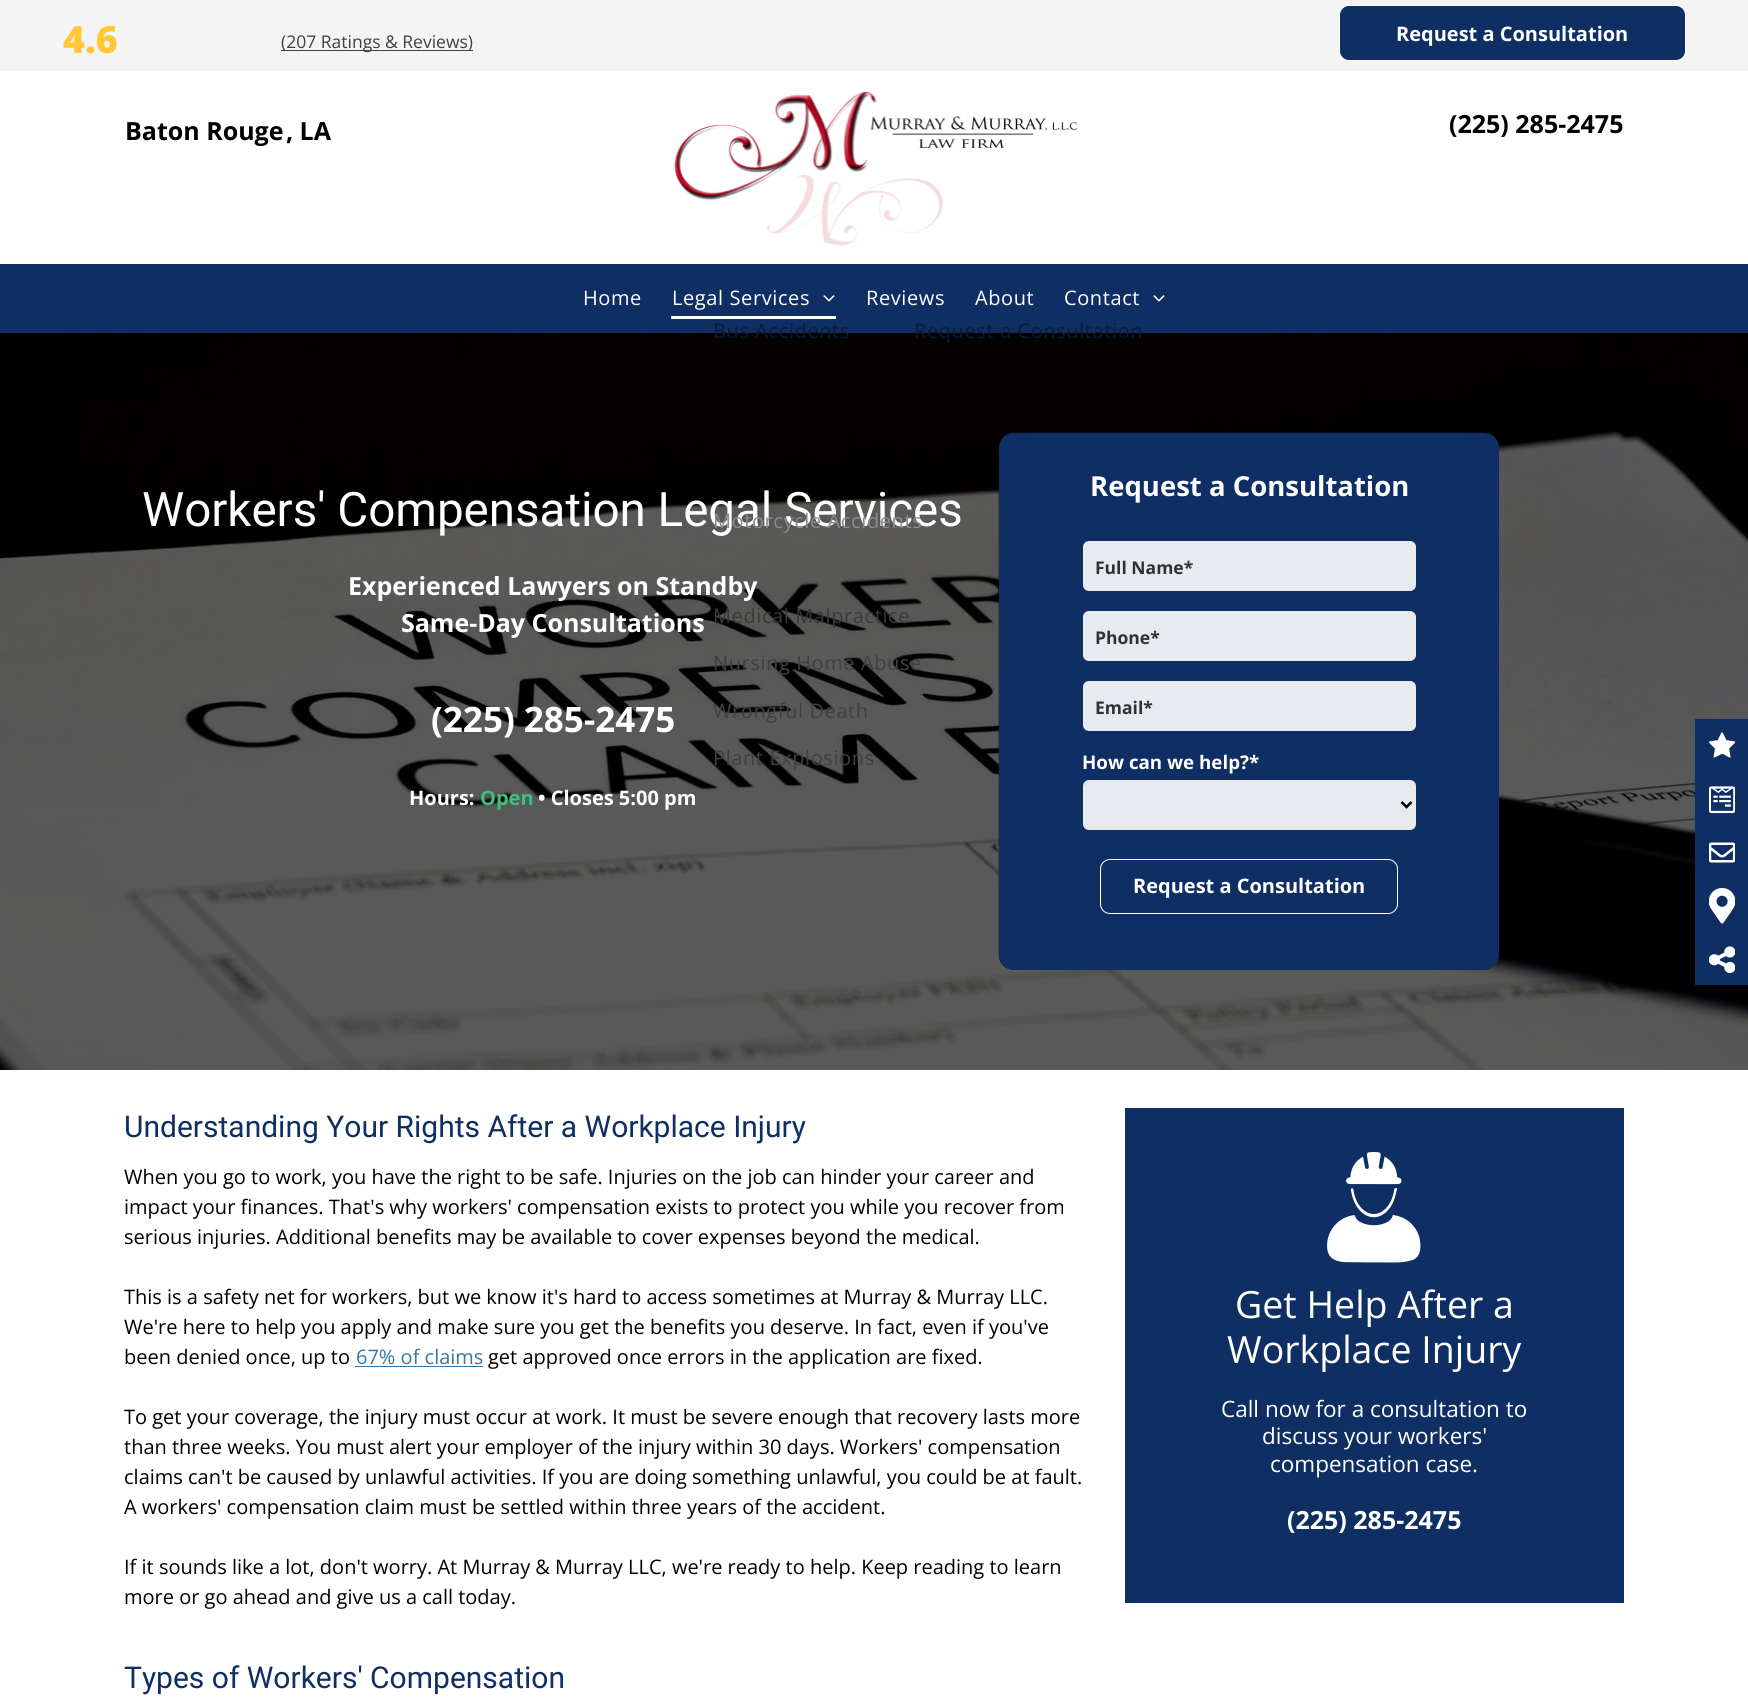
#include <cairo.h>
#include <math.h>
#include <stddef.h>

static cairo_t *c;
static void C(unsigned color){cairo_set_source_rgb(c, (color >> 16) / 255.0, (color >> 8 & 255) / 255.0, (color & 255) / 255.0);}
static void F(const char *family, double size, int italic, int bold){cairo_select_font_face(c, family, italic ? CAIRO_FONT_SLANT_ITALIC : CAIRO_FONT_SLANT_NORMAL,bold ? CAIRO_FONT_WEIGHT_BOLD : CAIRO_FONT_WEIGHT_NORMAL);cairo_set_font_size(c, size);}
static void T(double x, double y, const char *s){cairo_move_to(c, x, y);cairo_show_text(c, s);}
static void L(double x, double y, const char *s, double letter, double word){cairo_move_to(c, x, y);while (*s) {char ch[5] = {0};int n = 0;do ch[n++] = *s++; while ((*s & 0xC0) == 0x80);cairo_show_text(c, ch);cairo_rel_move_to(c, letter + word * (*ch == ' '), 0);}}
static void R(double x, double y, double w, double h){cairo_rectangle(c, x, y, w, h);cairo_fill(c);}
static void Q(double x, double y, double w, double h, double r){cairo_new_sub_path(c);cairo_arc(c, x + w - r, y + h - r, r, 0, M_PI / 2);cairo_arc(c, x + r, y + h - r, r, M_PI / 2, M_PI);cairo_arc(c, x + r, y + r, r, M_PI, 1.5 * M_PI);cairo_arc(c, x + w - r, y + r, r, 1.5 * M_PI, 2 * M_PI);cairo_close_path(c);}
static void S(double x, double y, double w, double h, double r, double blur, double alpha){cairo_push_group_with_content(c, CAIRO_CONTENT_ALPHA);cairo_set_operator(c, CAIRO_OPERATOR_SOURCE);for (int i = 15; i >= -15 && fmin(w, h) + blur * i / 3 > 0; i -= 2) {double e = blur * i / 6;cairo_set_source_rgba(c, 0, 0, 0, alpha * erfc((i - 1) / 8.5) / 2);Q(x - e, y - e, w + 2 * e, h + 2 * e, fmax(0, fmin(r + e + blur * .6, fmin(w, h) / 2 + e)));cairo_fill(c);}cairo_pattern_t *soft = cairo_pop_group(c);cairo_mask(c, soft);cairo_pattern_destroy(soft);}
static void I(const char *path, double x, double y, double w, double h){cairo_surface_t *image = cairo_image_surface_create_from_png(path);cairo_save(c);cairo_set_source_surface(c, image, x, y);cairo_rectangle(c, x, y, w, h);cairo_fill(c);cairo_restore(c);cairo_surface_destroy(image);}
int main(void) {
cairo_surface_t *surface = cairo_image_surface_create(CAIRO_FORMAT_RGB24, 1748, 1704);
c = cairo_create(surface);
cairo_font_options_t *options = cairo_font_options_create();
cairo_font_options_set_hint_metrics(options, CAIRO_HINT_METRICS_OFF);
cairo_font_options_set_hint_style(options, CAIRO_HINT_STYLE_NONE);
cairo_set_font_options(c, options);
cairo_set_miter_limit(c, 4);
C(0xffffff);
cairo_paint(c);
I("3.png",0,333,1748,737);
C(0x000000);
S(0,4,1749,332,0,7,.25);
C(0xffffff);
R(0,71,1748,193);
C(0xf5f4f4);
R(0,0,1748,71);
F("Open Sans ExtraBold",37.5,0,0);
C(0xffc834);
T(63,53,"4.6");
C(0x404040);
R(281,50,192,1);
F("Open Sans",17.5,0,0);
T(281,48,"(207 Ratings & Reviews)");
C(0x0f2e63);
Q(1339.5,5.5,346,55,9.5);
cairo_fill_preserve(c);
C(0xffffff);
cairo_set_line_width(c,1);
cairo_stroke(c);
F("Open Sans",20,0,1);
T(1396,41,"Request a Consultation");
F("Open Sans",25,0,1);
C(0x000000);
T(125,140,"Baton Rouge");
T(286,140,", LA");
I("1.png",674,91,403,155);
T(1449,133,"(225) 285-2475");
C(0x0f2e63);
R(0,264,1748,69);
F("Open Sans",20,0,0);
C(0xffffff);
L(583,305,"Home",.6,0);
L(672,305,"Legal Services",.6,0);
I("2.png",823,295,12,7);
R(671,316,165,3);
C(0x0a1b3a);
L(713,338,"Bus Accidents",.6,0);
F("Roboto",47.5,0,0);
C(0xffffff);
T(142,526,"Workers' Compensation Legal Services");
F("Open Sans",20,0,0);
C(0x8c8b8b);
L(713,528,"Motorcycle Accidents",.6,0);
C(0x393938);
L(713,623,"Medical Malpractice",.6,0);
C(0x404040);
L(713,670,"Nursing Home Abuse",.6,0);
L(713,718,"Wrongful Death",.6,0);
L(713,765,"Plant Explosions",.6,0);
C(0xffffff);
L(975,305,"About",.6,0);
L(866,305,"Reviews",.6,0);
L(1064,305,"Contact",.6,0);
I("2.png",1153,295,12,7);
C(0x0a1b3a);
L(914,338,"Request a Consultation",.6,0);
F("Open Sans",25,0,1);
C(0xffffff);
T(348,595,"Experienced Lawyers on Standby");
T(401,632,"Same-Day Consultations");
F("Open Sans",35,0,1);
T(431,732,"(225) 285-2475");
F("Open Sans",20,0,1);
T(409,805,"Hours:");
C(0x3ac280);
T(480,805,"Open");
C(0xffffff);
T(538,805,"• Closes 5:00 pm");
C(0x0f2e63);
Q(999,433,500,537,15);
cairo_fill(c);
F("Open Sans",27.5,0,1);
C(0xffffff);
T(1090,496,"Request a Consultation");
C(0xe7eaef);
Q(1083,541,333,50,6);
cairo_fill(c);
F("Open Sans",17.5,0,1);
C(0x313131);
T(1095,574,"Full Name*");
C(0xe7eaef);
Q(1083,611,333,50,6);
cairo_fill(c);
C(0x313131);
T(1095,644,"Phone*");
C(0xe7eaef);
Q(1083,681,333,50,6);
cairo_fill(c);
C(0x313131);
T(1095,714,"Email*");
F("Open Sans",18.75,0,1);
C(0xffffff);
T(1082,769,"How can we help?*");
C(0xe7eaef);
Q(1083,780,333,50,6);
cairo_fill(c);
cairo_new_path(c);
cairo_move_to(c,1401.5,802);
cairo_line_to(c,1406.5,807);
cairo_line_to(c,1411.5,802);
C(0x000000);
cairo_set_line_width(c,2.5);
cairo_stroke(c);
Q(1100.5,859.5,297,54,9.5);
C(0xffffff);
cairo_set_line_width(c,1);
cairo_stroke(c);
F("Open Sans",20,0,1);
T(1133,893,"Request a Consultation");
F("Roboto",30,0,0);
C(0x0f2e63);
T(124,1137,"Understanding Your Rights After a Workplace Injury");
F("Open Sans",20,0,0);
C(0x000000);
T(124,1184,"When you go to work, you have the right to be safe. Injuries on the job can hinder your career and");
T(124,1214,"impact your finances. That's why workers' compensation exists to protect you while you recover from");
T(124,1244,"serious injuries. Additional benefits may be available to cover expenses beyond the medical.");
T(124,1304,"This is a safety net for workers, but we know it's hard to access sometimes at Murray & Murray LLC.");
T(124,1334,"We're here to help you apply and make sure you get the benefits you deserve. In fact, even if you've");
T(124,1364,"been denied once, up to");
C(0x3676ab);
T(356,1364,"67% of claims");
R(355,1366,128,1);
C(0x000000);
T(488,1364,"get approved once errors in the application are fixed.");
T(124,1424,"To get your coverage, the injury must occur at work. It must be severe enough that recovery lasts more");
T(124,1454,"than three weeks. You must alert your employer of the injury within 30 days. Workers' compensation");
T(124,1484,"claims can't be caused by unlawful activities. If you are doing something unlawful, you could be at fault.");
T(124,1514,"A workers' compensation claim must be settled within three years of the accident.");
T(124,1574,"If it sounds like a lot, don't worry. At Murray & Murray LLC, we're ready to help. Keep reading to learn");
T(124,1604,"more or go ahead and give us a call today.");
F("Roboto",30,0,0);
C(0x0f2e63);
T(124,1688,"Types of Workers' Compensation");
R(1125,1108,499,495);
I("4.png",1327,1152,94,111);
F("Open Sans",37.5,0,0);
C(0xffffff);
T(1235,1318,"Get Help After a");
T(1227,1363,"Workplace Injury");
F("Open Sans",22.5,0,0);
T(1221,1417,"Call now for a consultation to");
T(1262,1444,"discuss your workers'");
T(1270,1472,"compensation case.");
F("Open Sans",25,0,1);
T(1287,1529,"(225) 285-2475");
C(0x0f2e63);
R(1695,719,53,266);
I("5.png",1709,732,26,26);
I("6.png",1709,786,26,28);
I("7.png",1709,842,26,21);
I("8.png",1709,888,26,36);
I("9.png",1709,946,26,28);
cairo_surface_write_to_png(surface, "o.png");
cairo_font_options_destroy(options);
cairo_destroy(c);
cairo_surface_destroy(surface);
return 0;
}
